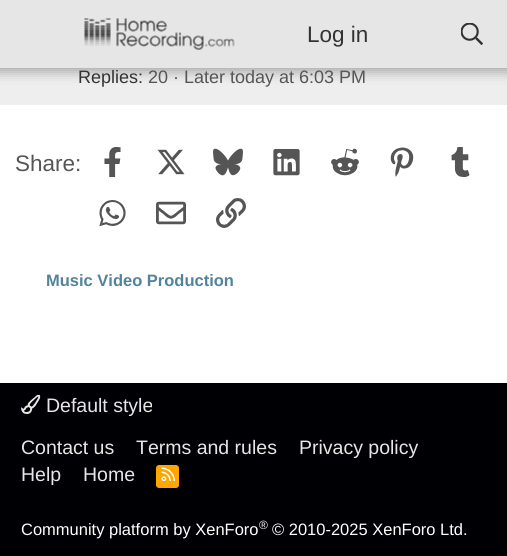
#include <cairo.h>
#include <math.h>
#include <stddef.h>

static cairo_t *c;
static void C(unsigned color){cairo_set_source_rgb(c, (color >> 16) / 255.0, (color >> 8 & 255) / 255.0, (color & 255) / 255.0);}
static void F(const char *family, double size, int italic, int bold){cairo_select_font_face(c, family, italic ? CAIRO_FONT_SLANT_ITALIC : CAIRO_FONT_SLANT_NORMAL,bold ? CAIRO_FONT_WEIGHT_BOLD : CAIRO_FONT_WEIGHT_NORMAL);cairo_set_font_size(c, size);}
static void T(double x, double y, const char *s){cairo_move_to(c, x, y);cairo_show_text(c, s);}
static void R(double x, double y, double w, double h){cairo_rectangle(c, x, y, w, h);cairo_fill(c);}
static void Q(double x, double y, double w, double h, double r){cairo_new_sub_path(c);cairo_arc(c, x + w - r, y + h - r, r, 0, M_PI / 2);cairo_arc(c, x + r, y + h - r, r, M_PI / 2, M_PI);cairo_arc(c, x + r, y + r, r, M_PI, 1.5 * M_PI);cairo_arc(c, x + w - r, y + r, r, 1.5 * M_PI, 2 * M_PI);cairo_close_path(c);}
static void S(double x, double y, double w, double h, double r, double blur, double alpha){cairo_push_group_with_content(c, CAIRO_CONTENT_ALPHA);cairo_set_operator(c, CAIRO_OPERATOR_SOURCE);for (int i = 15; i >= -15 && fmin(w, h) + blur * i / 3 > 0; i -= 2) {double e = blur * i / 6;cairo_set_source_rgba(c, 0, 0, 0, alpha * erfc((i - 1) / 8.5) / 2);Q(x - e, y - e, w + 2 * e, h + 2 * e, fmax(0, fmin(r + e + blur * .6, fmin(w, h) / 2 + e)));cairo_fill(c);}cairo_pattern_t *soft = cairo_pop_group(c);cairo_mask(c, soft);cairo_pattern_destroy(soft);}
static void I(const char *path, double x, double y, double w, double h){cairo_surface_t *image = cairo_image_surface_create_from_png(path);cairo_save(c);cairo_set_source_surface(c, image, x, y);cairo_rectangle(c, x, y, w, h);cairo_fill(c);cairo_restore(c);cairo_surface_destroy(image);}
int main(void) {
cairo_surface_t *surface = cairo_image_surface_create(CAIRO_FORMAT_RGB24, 507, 556);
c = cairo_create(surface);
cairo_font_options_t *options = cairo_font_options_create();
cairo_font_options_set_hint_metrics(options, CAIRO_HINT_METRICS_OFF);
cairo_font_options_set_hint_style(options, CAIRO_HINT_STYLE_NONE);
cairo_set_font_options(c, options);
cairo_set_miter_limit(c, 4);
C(0xffffff);
cairo_paint(c);
C(0xeeeeee);
R(0,68,507,37);
C(0x000000);
S(-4,-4,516,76,0,6,.3);
C(0xe6e6e6);
R(0,0,507,68);
I("1.png",84,18,151,32);
F("Liberation Sans",22.5,0,0);
C(0x313331);
T(307,42,"Log in");
I("2.png",461,23,22,22);
F("Liberation Sans",18,0,0);
T(78,83,"Replies:");
C(0x555555);
T(148,83,"20");
T(173,83,"· Later today at 6:03 PM");
F("Liberation Sans",22.5,0,0);
T(15,171,"Share:");
I("3.png",104,147,17,30);
I("4.png",157,149,28,26);
I("5.png",213,148,30,28);
I("6.png",273,149,27,27);
I("7.png",331,148,28,28);
I("8.png",390,147,24,30);
I("9.png",451,147,19,30);
I("10.png",99,200,27,27);
I("11.png",156,201,30,24);
I("12.png",216,198,30,30);
F("Liberation Sans",16.5,0,1);
C(0x53839c);
T(46,286,"Music Video Production");
C(0x000004);
R(0,383,507,173);
I("13.png",21,394,20,20);
F("Liberation Sans",19.5,0,0);
C(0xe6e6e6);
T(46,412,"Default style");
T(21,454,"Contact us");
T(136,454,"Terms and rules");
T(299,454,"Privacy policy");
T(21,481,"Help");
T(83,481,"Home");
C(0xffa500);
Q(156,465,23,23,3);
cairo_fill(c);
I("14.png",161,467,15,14);
F("Liberation Sans",16.5,0,0);
C(0xffffff);
T(21,535,"Community platform by XenForo");
F("Liberation Sans",12,0,0);
T(259,529,"®");
F("Liberation Sans",16.5,0,0);
T(272,535,"© 2010-2025 XenForo Ltd.");
cairo_surface_write_to_png(surface, "o.png");
cairo_font_options_destroy(options);
cairo_destroy(c);
cairo_surface_destroy(surface);
return 0;
}
